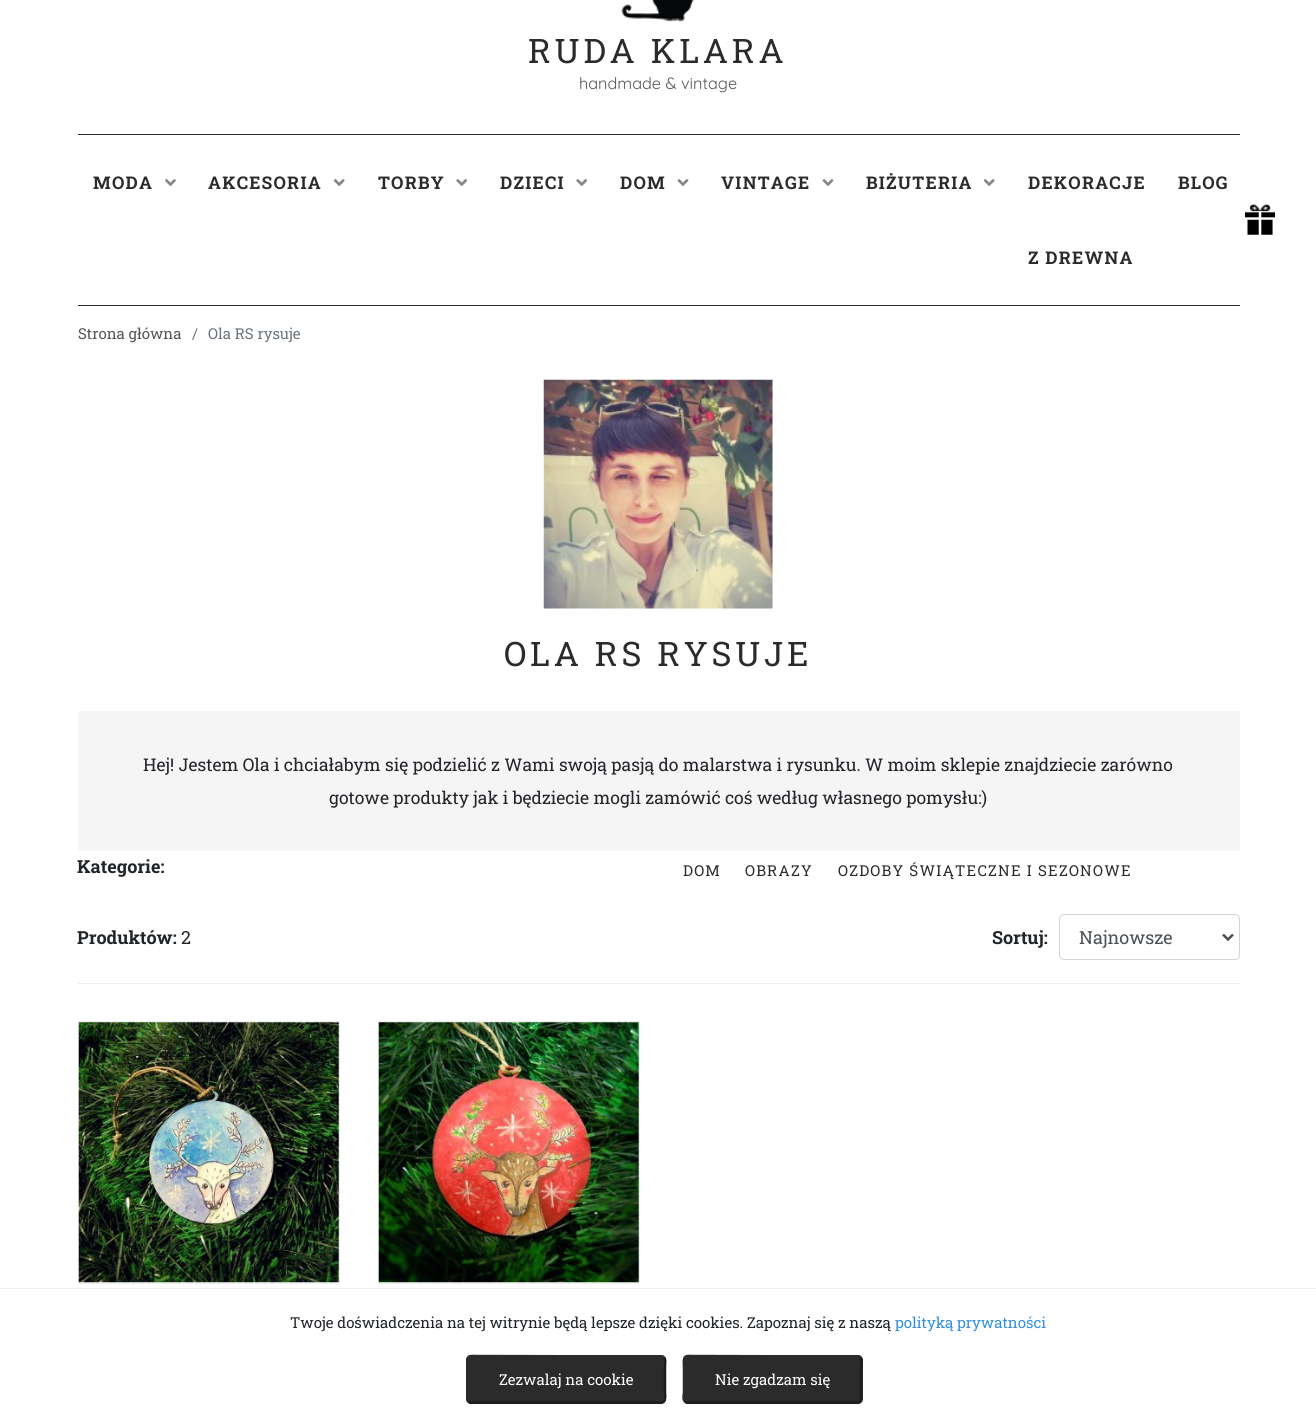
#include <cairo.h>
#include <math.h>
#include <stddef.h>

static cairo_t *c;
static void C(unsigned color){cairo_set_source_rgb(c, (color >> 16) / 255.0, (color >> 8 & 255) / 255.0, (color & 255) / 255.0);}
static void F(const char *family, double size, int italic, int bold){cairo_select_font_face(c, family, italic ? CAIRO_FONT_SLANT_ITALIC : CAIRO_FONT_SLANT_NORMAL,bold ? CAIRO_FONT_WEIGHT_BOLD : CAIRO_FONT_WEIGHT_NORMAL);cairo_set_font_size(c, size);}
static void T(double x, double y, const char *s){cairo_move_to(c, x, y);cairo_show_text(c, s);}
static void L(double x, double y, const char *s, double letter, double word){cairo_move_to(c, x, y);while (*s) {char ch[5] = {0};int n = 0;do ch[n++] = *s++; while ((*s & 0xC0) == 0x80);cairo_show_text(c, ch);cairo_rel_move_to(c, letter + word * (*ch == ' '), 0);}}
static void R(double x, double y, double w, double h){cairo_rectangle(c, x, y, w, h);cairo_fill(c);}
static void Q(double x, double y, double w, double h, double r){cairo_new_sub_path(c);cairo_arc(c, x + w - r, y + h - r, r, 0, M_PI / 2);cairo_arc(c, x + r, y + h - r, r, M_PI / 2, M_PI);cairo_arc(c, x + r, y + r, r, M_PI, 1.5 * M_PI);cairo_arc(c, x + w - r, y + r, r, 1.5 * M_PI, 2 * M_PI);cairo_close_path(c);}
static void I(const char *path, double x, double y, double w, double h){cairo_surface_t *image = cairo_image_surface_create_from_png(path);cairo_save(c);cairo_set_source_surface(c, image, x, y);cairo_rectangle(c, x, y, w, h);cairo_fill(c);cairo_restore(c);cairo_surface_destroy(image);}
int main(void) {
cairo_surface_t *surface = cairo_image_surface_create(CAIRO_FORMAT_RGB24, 1316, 1423);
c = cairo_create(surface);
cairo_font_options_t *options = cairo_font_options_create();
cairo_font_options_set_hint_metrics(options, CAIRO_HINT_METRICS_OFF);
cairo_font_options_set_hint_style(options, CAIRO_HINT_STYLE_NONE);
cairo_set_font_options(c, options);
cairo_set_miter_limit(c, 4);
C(0xffffff);
cairo_paint(c);
I("1.png",621,0,73,22);
F("Roboto Slab",33.75,0,0);
C(0x2b2b2b);
L(528,63,"RUDA KLARA",3.75,0);
F("Quicksand Light",16.25,0,0);
C(0x555555);
T(579,89,"handmade & vintage");
C(0x2b2b2b);
R(78,134,1162,1);
R(78,305,1162,1);
F("Roboto Slab",17.5,0,1);
L(93,189,"MODA",1.25,0);
I("2.png",165,179,11,7);
L(208,189,"AKCESORIA",1.25,0);
I("3.png",333,179,12,7);
L(378,189,"TORBY",1.25,0);
I("4.png",456,179,12,7);
L(500,189,"DZIECI",1.25,0);
I("4.png",576,179,12,7);
L(620,189,"DOM",1.25,0);
I("5.png",677,179,12,7);
L(721,189,"VINTAGE",1.25,0);
I("5.png",822,179,12,7);
L(866,189,"BIŻUTERIA",1.25,0);
I("3.png",983,179,12,7);
L(1028,189,"DEKORACJE",1.25,0);
L(1028,264,"Z DREWNA",1.25,0);
L(1178,189,"BLOG",1.25,0);
I("6.png",1245,204,30,31);
F("Roboto Slab",15,0,0);
C(0x555555);
T(78,339,"Strona główna");
C(0x6c757d);
T(192,339,"/");
T(208,339,"Ola RS rysuje");
I("7.png",543,379,230,230);
F("Roboto Slab",33.75,0,0);
C(0x2b2b2b);
L(504,666,"OLA RS RYSUJE",3.75,0);
C(0xf5f5f5);
R(78,711,1162,140);
F("Roboto Slab",17.5,0,0);
C(0x212529);
T(143,771,"Hej! Jestem Ola i chciałabym się podzielić z Wami swoją pasją do malarstwa i rysunku. W moim sklepie znajdziecie zarówno");
T(329,804,"gotowe produkty jak i będziecie mogli zamówić coś według własnego pomysłu:)");
F("Roboto Slab",18,0,1);
T(77,873,"Kategorie:");
F("Roboto Slab",15,0,0);
C(0x2b2b2b);
L(683,876,"DOM",1.25,0);
L(745,876,"OBRAZY",1.25,0);
L(838,876,"OZDOBY ŚWIĄTECZNE I SEZONOWE",1.25,0);
C(0xeeeeee);
R(78,983,1162,1);
F("Roboto Slab",18,0,1);
C(0x212529);
T(77,944,"Produktów:");
F("Roboto Slab",18,0,0);
T(181,944,"2");
F("Roboto Slab",18,0,1);
T(992,944,"Sortuj:");
Q(1059.5,914.5,180,45,4.5);
C(0xced4da);
cairo_set_line_width(c,1);
cairo_stroke(c);
cairo_new_path(c);
cairo_move_to(c,1223,934.5);
cairo_line_to(c,1228,939.5);
cairo_line_to(c,1233,934.5);
C(0x495057);
cairo_set_line_width(c,2.5);
cairo_stroke(c);
F("Roboto Slab",18,0,0);
T(1079,944,"Najnowsze");
cairo_rectangle(c,78.5,1021.5,261,262);
C(0xeeeeee);
cairo_set_line_width(c,1);
cairo_stroke(c);
I("8.png",78,1022,261,261);
cairo_rectangle(c,378.5,1021.5,261,262);
cairo_stroke(c);
I("9.png",378,1022,261,261);
R(0,1288,1316,1);
F("Roboto Slab",15,0,0);
C(0x212529);
T(290,1328,"Twoje doświadczenia na tej witrynie będą lepsze dzięki cookies. Zapoznaj się z naszą");
C(0x3490dc);
T(895,1328,"polityką prywatności");
C(0x2b2b2b);
Q(466,1355,200,49,5);
cairo_fill(c);
cairo_new_path(c);
cairo_move_to(c,664,1357.5);
cairo_curve_to(c,666,1359.5,665,1364.5,665,1366.5);
cairo_line_to(c,665,1392.5);
cairo_curve_to(c,665,1395,666.5,1402.5,661,1402.5);
cairo_line_to(c,470,1402.5);
cairo_line_to(c,468.5,1401.5);
C(0x1d1d1d);
cairo_set_line_width(c,2.5);
cairo_stroke(c);
cairo_new_path(c);
cairo_move_to(c,468.5,1401.5);
cairo_curve_to(c,466.5,1399.5,467.5,1394,467.5,1392.5);
cairo_line_to(c,467.5,1366.5);
cairo_curve_to(c,467.5,1363.5,466,1356.5,471,1356);
cairo_line_to(c,662.5,1356.5);
cairo_line_to(c,664,1357.5);
C(0x2b2b2b);
cairo_stroke(c);
C(0xffffff);
T(499,1385,"Zezwalaj na cookie");
C(0x2b2b2b);
Q(683,1355,180,49,5);
cairo_fill(c);
cairo_new_path(c);
cairo_move_to(c,860,1357.5);
cairo_curve_to(c,862.5,1359.5,861,1364.5,861,1366.5);
cairo_line_to(c,861,1392.5);
cairo_curve_to(c,861,1395,862.5,1402.5,857.5,1402.5);
cairo_line_to(c,686.5,1402.5);
cairo_line_to(c,685,1401.5);
C(0x1d1d1d);
cairo_stroke(c);
cairo_new_path(c);
cairo_move_to(c,685,1401.5);
cairo_curve_to(c,682.5,1399.5,684,1394,684,1392.5);
cairo_line_to(c,684,1366.5);
cairo_curve_to(c,684,1363.5,682.5,1356.5,687.5,1356);
cairo_line_to(c,858.5,1356.5);
cairo_line_to(c,860,1357.5);
C(0x2b2b2b);
cairo_stroke(c);
C(0xffffff);
T(715,1385,"Nie zgadzam się");
cairo_surface_write_to_png(surface, "o.png");
cairo_font_options_destroy(options);
cairo_destroy(c);
cairo_surface_destroy(surface);
return 0;
}
